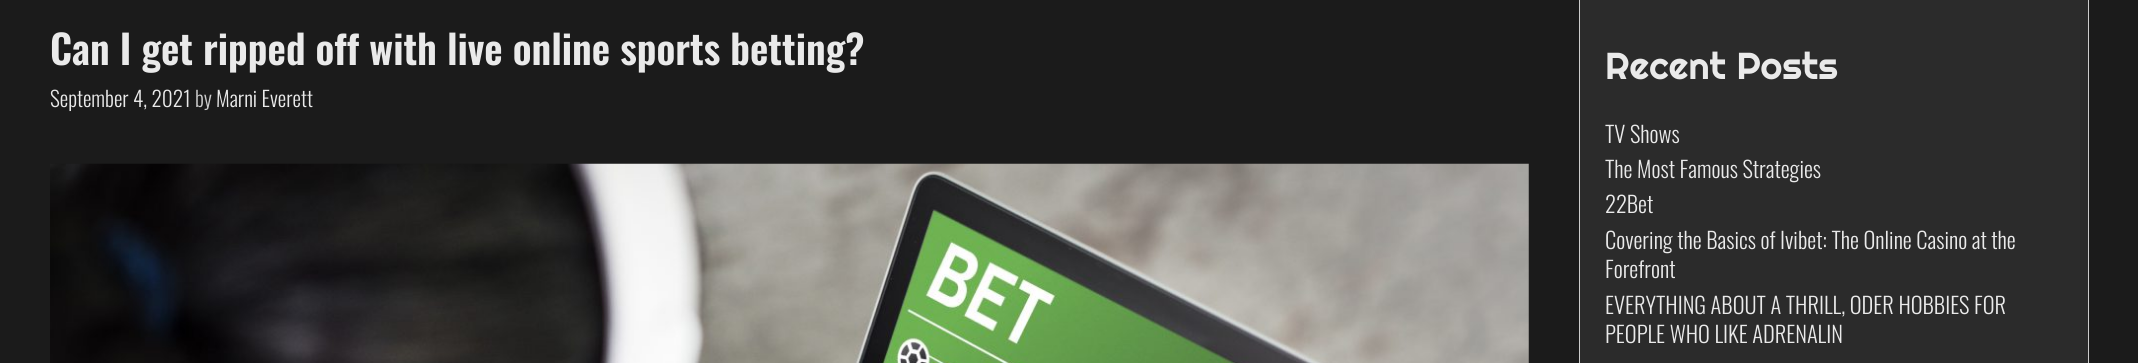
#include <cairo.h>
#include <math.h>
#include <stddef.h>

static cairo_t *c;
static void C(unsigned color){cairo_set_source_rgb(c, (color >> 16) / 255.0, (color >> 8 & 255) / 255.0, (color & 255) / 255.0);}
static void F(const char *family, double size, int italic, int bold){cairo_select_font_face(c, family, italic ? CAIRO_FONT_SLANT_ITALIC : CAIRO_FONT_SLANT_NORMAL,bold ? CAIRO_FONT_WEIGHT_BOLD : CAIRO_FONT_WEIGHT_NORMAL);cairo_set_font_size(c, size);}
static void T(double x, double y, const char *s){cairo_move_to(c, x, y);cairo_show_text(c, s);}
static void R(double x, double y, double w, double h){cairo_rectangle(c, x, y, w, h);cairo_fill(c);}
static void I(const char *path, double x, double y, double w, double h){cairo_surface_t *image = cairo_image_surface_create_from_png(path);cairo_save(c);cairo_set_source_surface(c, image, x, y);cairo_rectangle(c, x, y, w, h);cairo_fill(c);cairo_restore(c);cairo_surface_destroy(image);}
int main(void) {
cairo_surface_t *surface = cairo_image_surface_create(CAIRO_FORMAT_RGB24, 2138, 363);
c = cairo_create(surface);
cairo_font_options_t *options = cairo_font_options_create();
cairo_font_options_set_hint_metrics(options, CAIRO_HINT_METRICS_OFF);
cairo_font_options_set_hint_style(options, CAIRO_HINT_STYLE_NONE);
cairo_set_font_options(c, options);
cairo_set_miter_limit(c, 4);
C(0x1b1b1b);
cairo_paint(c);
F("Oswald SemiBold",40,0,0);
C(0xeaeaea);
T(50,65,"Can I get ripped off with live online sports betting?");
F("Oswald Light",21.25,0,0);
T(50,107,"September 4, 2021");
C(0xcccccc);
T(195,107,"by");
C(0xeaeaea);
T(216,107,"Marni Everett");
I("1.png",50,163,1479,200);
cairo_rectangle(c,1579.5,-.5,509,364);
C(0xcccccc);
cairo_set_line_width(c,1);
cairo_stroke(c);
C(0x2b2b2b);
R(1580,0,508,363);
F("Righteous",37.5,0,0);
C(0xeaeaea);
T(1605,79,"Recent Posts");
F("Oswald Light",22.5,0,0);
T(1605,143,"TV Shows");
T(1605,178,"The Most Famous Strategies");
T(1605,213,"22Bet");
T(1605,249,"Covering the Basics of Ivibet: The Online Casino at the");
T(1605,278,"Forefront");
T(1605,314,"EVERYTHING ABOUT A THRILL, ODER HOBBIES FOR");
T(1605,343,"PEOPLE WHO LIKE ADRENALIN");
cairo_surface_write_to_png(surface, "o.png");
cairo_font_options_destroy(options);
cairo_destroy(c);
cairo_surface_destroy(surface);
return 0;
}
